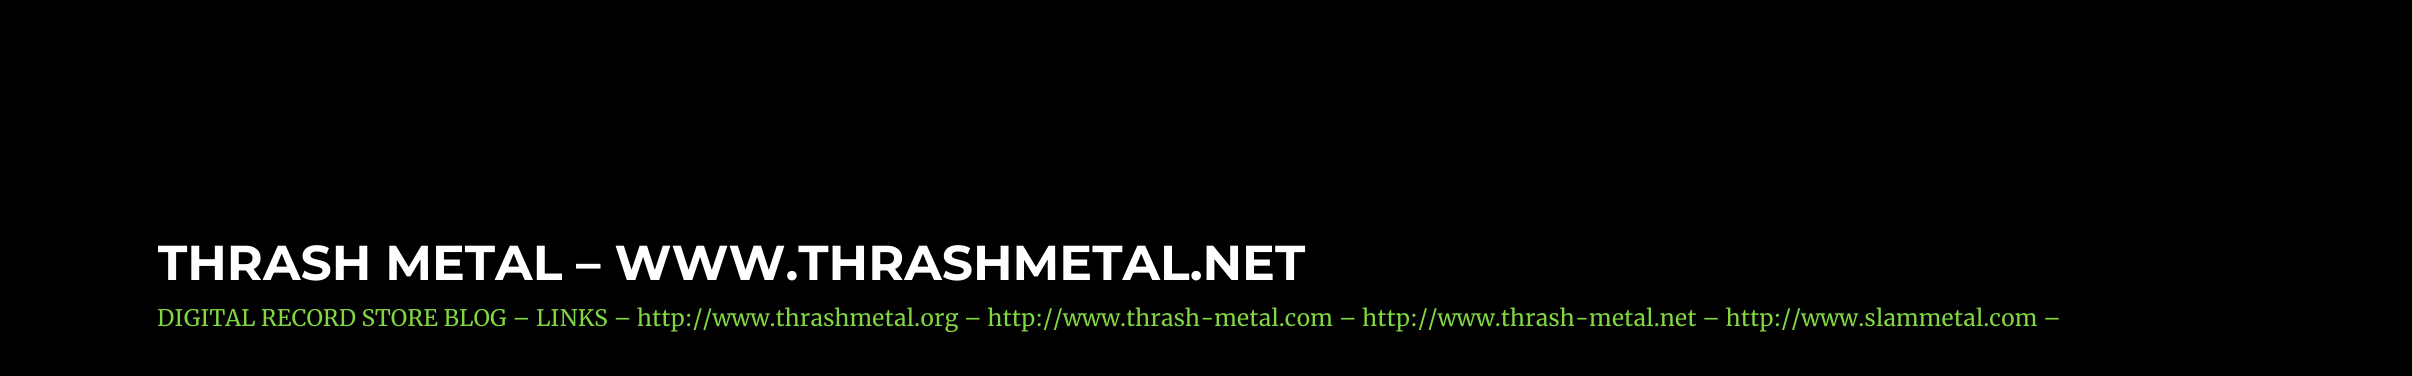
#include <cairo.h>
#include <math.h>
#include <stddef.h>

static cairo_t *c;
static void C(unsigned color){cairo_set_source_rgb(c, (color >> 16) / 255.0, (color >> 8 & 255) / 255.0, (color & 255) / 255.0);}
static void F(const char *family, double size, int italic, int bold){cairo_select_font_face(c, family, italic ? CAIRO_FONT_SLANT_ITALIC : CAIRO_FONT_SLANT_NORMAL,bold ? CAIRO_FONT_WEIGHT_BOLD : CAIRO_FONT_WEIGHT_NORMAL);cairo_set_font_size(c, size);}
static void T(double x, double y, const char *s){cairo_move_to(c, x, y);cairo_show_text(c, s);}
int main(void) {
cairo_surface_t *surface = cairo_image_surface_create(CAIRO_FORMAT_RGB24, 2412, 376);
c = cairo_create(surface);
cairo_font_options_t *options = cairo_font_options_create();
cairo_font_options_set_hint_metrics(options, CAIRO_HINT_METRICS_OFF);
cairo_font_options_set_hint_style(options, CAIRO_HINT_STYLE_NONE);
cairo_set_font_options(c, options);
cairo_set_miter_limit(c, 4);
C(0x000000);
cairo_paint(c);
cairo_save(c);
cairo_rectangle(c,158,233,2100,122);
cairo_clip(c);
F("Montserrat Thin",49,0,0);
C(0xffffff);
T(157,280,"THRASH METAL – WWW.THRASHMETAL.NET");
cairo_restore(c);
F("Merriweather",22.75,0,0);
C(0x81d742);
T(157,326,"DIGITAL RECORD STORE BLOG – LINKS – http://www.thrashmetal.org – http://www.thrash-metal.com – http://www.thrash-metal.net – http://www.slammetal.com –");
cairo_surface_write_to_png(surface, "o.png");
cairo_font_options_destroy(options);
cairo_destroy(c);
cairo_surface_destroy(surface);
return 0;
}
